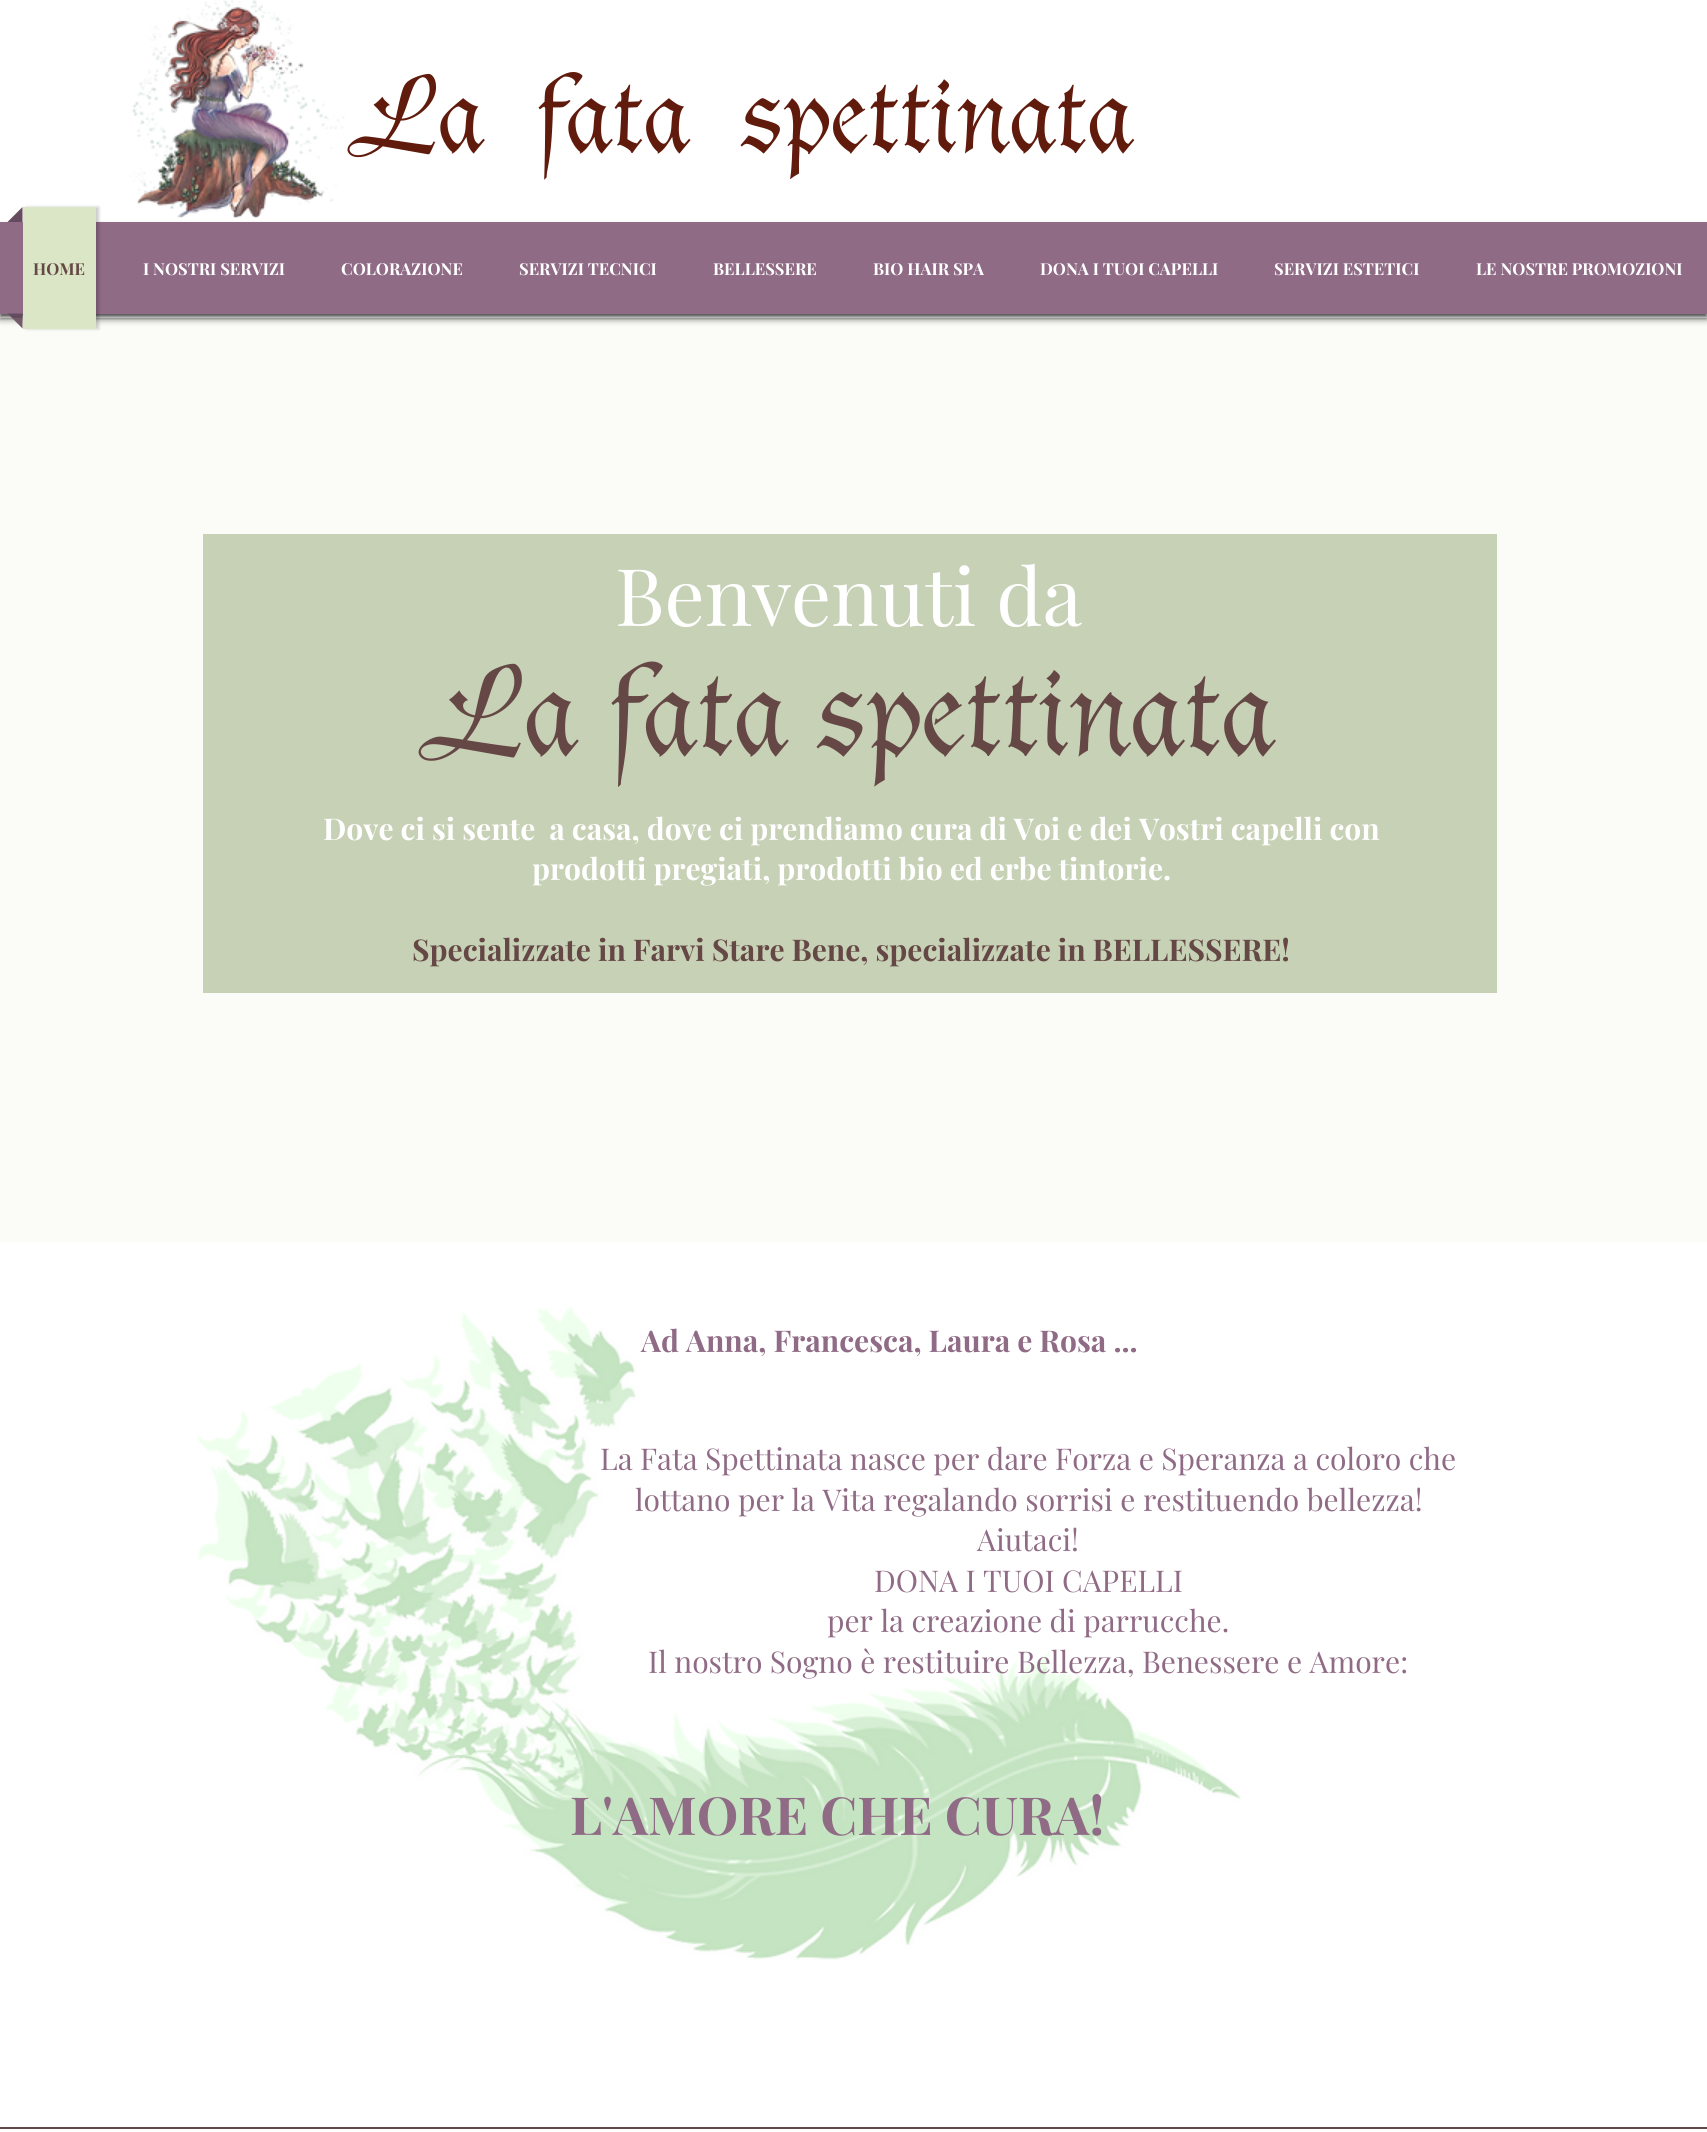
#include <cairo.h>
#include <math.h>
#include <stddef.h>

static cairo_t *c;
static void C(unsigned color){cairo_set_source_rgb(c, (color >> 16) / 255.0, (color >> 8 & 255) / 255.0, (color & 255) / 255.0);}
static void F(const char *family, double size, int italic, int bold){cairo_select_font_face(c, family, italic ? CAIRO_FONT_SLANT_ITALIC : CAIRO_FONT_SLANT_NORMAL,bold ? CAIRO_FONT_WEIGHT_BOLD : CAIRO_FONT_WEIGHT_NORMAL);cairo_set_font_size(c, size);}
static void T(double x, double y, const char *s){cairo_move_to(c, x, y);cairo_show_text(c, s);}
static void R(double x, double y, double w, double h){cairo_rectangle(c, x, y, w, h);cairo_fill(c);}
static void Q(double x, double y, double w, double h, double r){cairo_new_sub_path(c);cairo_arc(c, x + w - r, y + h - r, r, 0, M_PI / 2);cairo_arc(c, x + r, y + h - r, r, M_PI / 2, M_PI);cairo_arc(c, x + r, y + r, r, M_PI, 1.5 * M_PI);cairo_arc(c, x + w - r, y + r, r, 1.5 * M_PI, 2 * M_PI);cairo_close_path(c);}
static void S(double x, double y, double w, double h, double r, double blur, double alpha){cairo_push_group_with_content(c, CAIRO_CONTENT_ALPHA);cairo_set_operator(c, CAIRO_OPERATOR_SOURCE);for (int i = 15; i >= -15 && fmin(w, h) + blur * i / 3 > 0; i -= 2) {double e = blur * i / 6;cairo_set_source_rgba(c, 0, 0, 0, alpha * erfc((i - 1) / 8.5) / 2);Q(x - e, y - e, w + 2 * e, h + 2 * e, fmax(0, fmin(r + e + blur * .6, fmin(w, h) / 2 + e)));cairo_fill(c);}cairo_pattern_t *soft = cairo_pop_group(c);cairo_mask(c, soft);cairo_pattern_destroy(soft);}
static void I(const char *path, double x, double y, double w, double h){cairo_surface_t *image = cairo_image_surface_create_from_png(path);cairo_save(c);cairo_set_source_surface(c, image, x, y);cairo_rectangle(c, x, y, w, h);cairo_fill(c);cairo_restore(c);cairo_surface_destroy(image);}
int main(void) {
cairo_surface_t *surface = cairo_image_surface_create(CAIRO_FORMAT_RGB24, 1707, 2132);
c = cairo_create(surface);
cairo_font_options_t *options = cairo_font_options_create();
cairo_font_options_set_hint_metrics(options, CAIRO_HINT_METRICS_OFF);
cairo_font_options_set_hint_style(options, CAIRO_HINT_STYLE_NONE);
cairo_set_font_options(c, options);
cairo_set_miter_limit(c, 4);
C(0xffffff);
cairo_paint(c);
cairo_save(c);
cairo_rectangle(c,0,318,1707,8);
cairo_clip(c);
C(0x000000);
S(0,0,1707,318,0,4,.7);
cairo_restore(c);
I("1.png",129,0,216,218);
F("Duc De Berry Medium",108,0,0);
C(0x611b0d);
T(353,153,"La  fata  spettinata");
C(0x000000);
S(0,225,1707,92,0,2,.7);
C(0x906b86);
R(0,222,1707,92);
C(0x000000);
S(26,207,73,122,0,1.5,.2);
C(0x654b5e);
cairo_new_path(c);
cairo_move_to(c,22.5,222);
cairo_line_to(c,7.5,222);
cairo_line_to(c,22.5,207);
cairo_close_path(c);
cairo_fill(c);
C(0xdbe6c7);
R(23,207,73,122);
C(0x654b5e);
cairo_new_path(c);
cairo_move_to(c,7.5,313.5);
cairo_line_to(c,22.5,313.5);
cairo_line_to(c,22.5,328.5);
cairo_close_path(c);
cairo_fill(c);
F("Playfair Display",16.5,0,1);
C(0x654845);
T(33,275,"HOME");
C(0xffffff);
T(143,275,"I NOSTRI SERVIZI");
T(341,275,"COLORAZIONE");
T(519,275,"SERVIZI TECNICI");
T(713,275,"BELLESSERE");
T(873,275,"BIO HAIR SPA");
T(1040,275,"DONA I TUOI CAPELLI");
T(1274,275,"SERVIZI ESTETICI");
T(1476,275,"LE NOSTRE PROMOZIONI");
cairo_set_source_rgba(c,0.859,0.902,0.78,0.11);
R(0,318,1707,924);
C(0xc6d1b5);
R(203,534,1294,459);
F("Playfair Display",79.5,0,0);
C(0xffffff);
T(615,626,"Benvenuti da");
F("Duc De Berry Medium",126,0,0);
C(0x654845);
T(425,756,"La fata spettinata");
F("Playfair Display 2",30,0,1);
C(0xffffff);
T(323,840,"Dove ci si sente  a casa, dove ci prendiamo cura di Voi e dei Vostri capelli con");
T(532,880,"prodotti pregiati, prodotti bio ed erbe tintorie.");
C(0x654845);
T(412,961,"Specializzate in Farvi Stare Bene, specializzate in BELLESSERE!");
I("2.png",196,1306,1045,654);
F("Playfair Display",30,0,1);
C(0x906b86);
T(641,1352,"Ad Anna, Francesca, Laura e Rosa ...");
F("Playfair Display",30,0,0);
T(600,1470,"La Fata Spettinata nasce per dare Forza e Speranza a coloro che");
T(635,1511,"lottano per la Vita regalando sorrisi e restituendo bellezza!");
T(977,1551,"Aiutaci!");
T(874,1592,"DONA I TUOI CAPELLI");
T(827,1632,"per la creazione di parrucche.");
T(648,1673,"Il nostro Sogno è restituire Bellezza, Benessere e Amore:");
F("Playfair Display",52.5,0,1);
T(570,1835,"L'AMORE CHE CURA!");
C(0x654845);
R(0,2127,1707,2);
cairo_surface_write_to_png(surface, "o.png");
cairo_font_options_destroy(options);
cairo_destroy(c);
cairo_surface_destroy(surface);
return 0;
}
